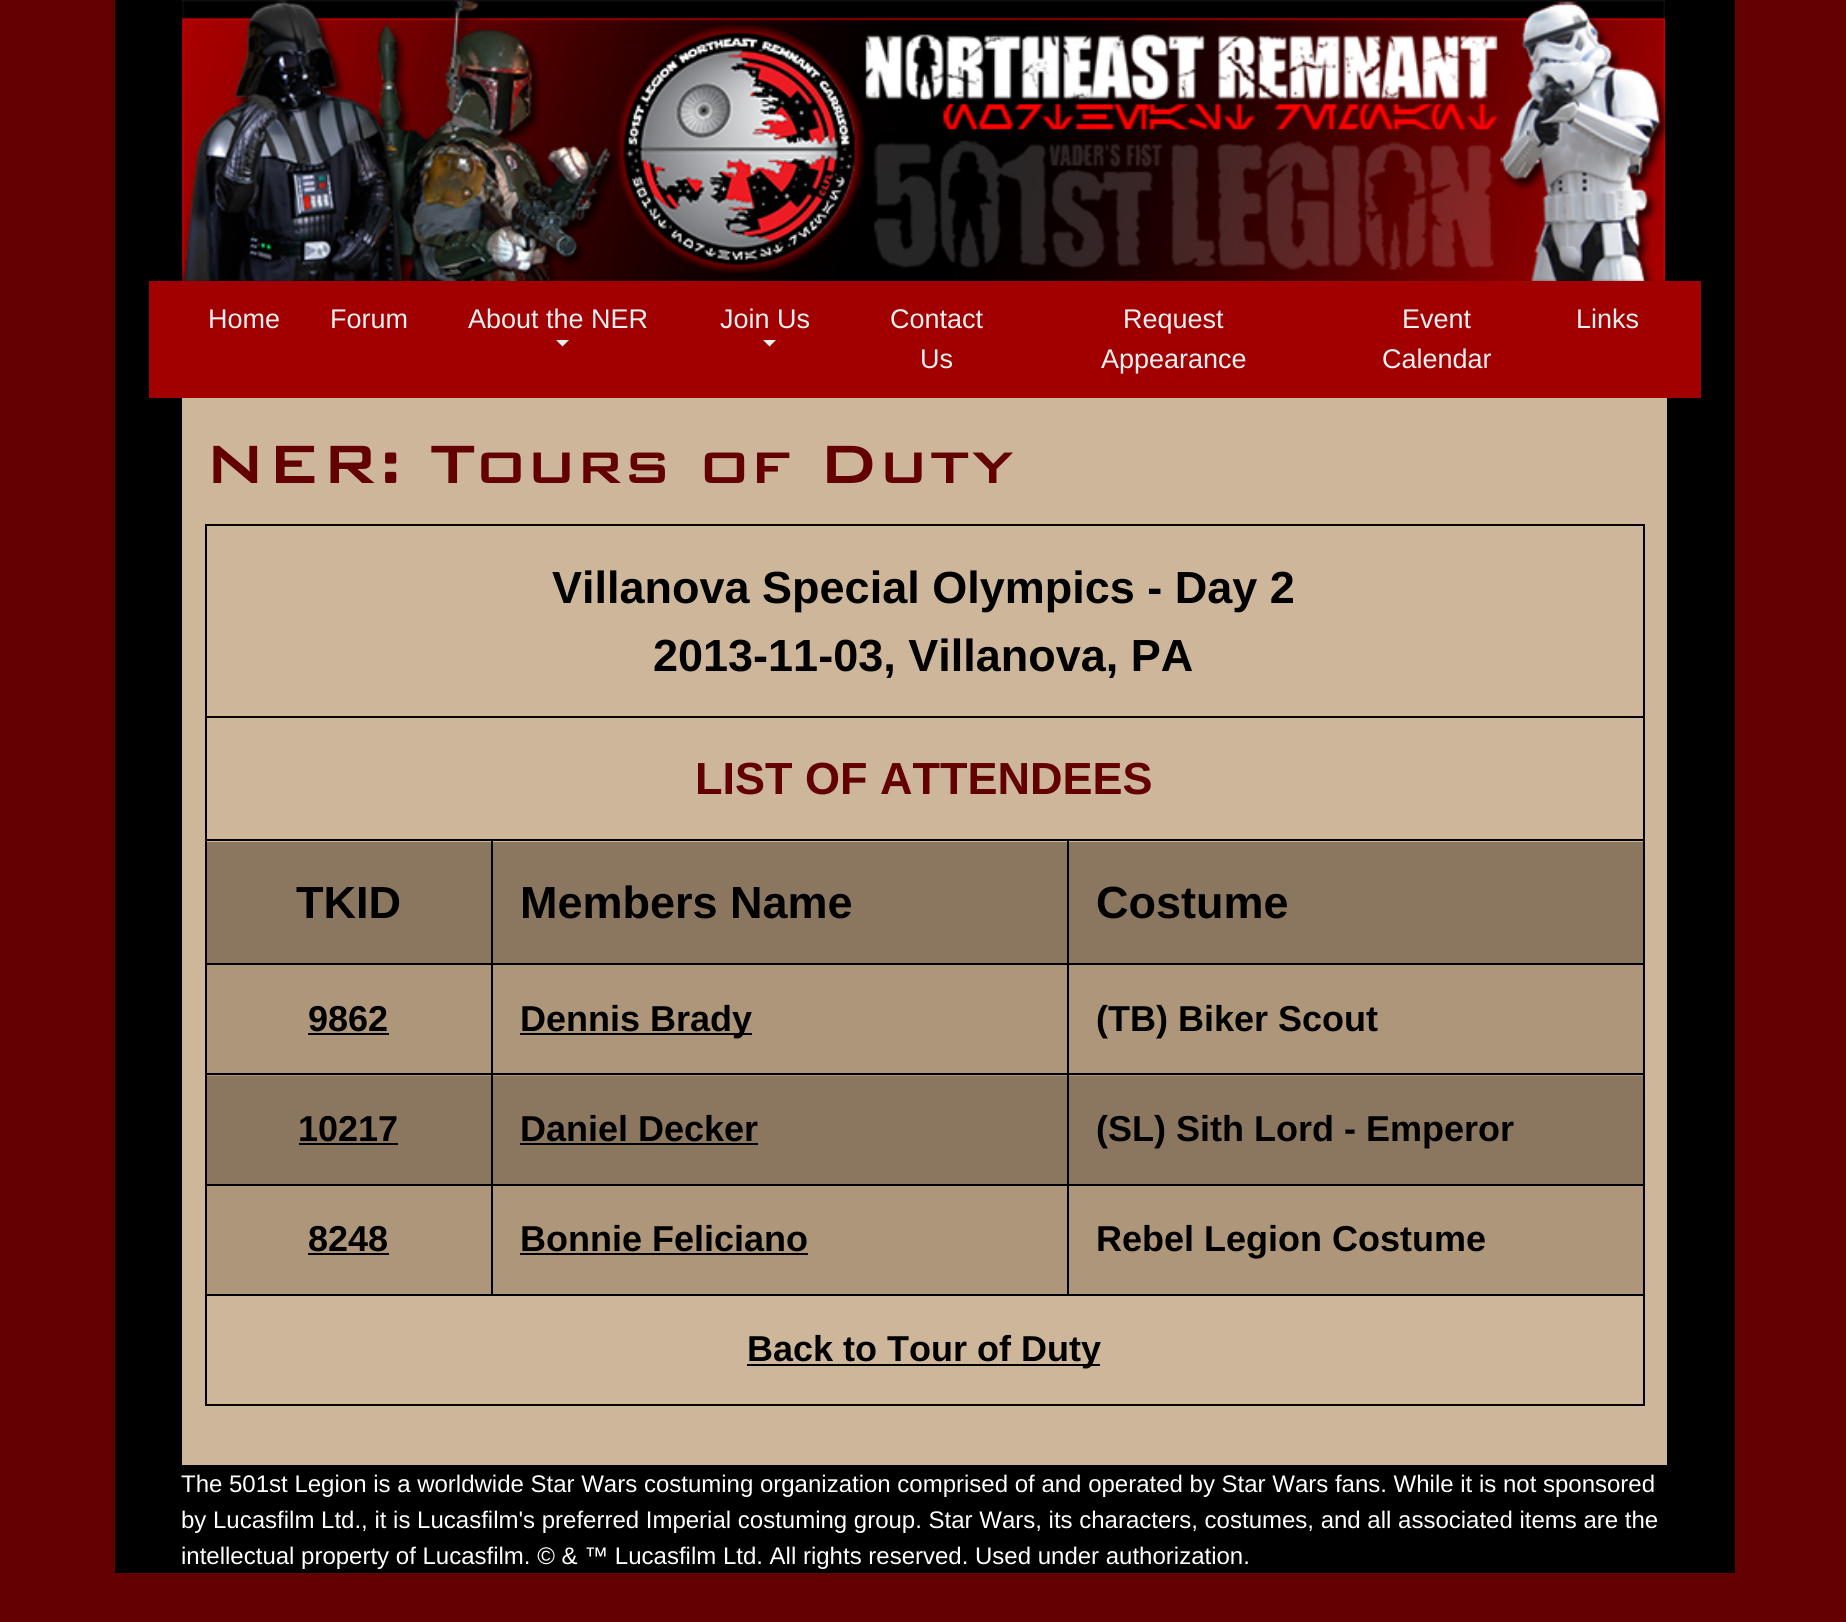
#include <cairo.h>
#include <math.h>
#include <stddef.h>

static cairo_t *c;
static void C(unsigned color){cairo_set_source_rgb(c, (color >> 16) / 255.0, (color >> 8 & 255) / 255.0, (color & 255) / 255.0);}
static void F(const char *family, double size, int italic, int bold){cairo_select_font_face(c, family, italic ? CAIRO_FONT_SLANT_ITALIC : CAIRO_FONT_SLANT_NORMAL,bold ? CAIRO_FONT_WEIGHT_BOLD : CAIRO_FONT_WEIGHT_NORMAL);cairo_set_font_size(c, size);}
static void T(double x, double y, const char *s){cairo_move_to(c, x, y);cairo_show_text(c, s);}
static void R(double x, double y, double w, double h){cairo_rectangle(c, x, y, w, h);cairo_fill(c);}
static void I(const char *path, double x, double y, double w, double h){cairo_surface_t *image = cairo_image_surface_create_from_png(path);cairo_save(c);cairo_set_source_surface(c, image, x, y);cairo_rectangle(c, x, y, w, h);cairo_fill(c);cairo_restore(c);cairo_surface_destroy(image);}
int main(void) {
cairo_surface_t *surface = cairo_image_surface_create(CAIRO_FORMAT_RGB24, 1846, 1622);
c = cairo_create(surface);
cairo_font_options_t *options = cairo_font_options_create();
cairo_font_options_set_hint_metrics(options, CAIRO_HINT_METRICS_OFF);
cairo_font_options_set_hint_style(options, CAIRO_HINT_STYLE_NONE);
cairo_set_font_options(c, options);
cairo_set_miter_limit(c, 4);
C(0x630001);
cairo_paint(c);
C(0x000000);
R(115,0,1620,1573);
I("1.png",182,0,1483,281);
C(0xa20000);
R(149,281,1552,117);
F("Liberation Sans",27,0,0);
C(0xecf0f1);
T(208,328,"Home");
T(330,328,"Forum");
T(468,328,"About the NER");
cairo_new_path(c);
cairo_move_to(c,556,340);
cairo_line_to(c,569,340);
cairo_line_to(c,562.5,346.5);
cairo_close_path(c);
cairo_fill(c);
T(720,328,"Join Us");
cairo_new_path(c);
cairo_move_to(c,763,340);
cairo_line_to(c,776,340);
cairo_line_to(c,769.5,346.5);
cairo_close_path(c);
cairo_fill(c);
T(890,328,"Contact");
T(920,368,"Us");
T(1123,328,"Request");
T(1101,368,"Appearance");
T(1402,328,"Event");
T(1382,368,"Calendar");
T(1576,328,"Links");
C(0xceb69b);
R(182,398,1485,1067);
F("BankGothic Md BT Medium",72,0,0);
C(0x630001);
T(204,483,"NER: Tours of Duty");
C(0x000000);
R(205,524,1440,2);
R(205,716,1440,2);
R(1067,839,578,2);
R(1067,963,578,2);
C(0xad9679);
R(207,965,1436,111);
C(0x000000);
R(1067,1073,578,2);
R(1067,1184,578,2);
R(205,1294,1440,2);
R(1643,1294,2,112);
R(1643,1184,2,112);
R(1643,1073,2,113);
R(1643,963,2,113);
R(1643,839,2,126);
R(1643,716,2,126);
R(1643,524,2,194);
C(0x8b775f);
R(207,842,1436,121);
R(207,1076,1436,108);
C(0xad9679);
R(207,1186,1436,108);
C(0x000000);
R(1067,1184,2,112);
R(491,1184,578,2);
R(1067,1073,2,113);
R(491,1073,578,2);
R(1067,963,2,113);
R(491,963,578,2);
R(1067,839,2,126);
R(491,839,578,2);
R(491,1184,2,112);
R(205,1184,288,2);
R(491,1073,2,113);
R(205,1073,288,2);
R(491,963,2,113);
R(205,963,288,2);
R(491,839,2,126);
R(205,839,288,2);
R(205,1404,1440,2);
R(205,1294,2,112);
R(205,1184,2,112);
R(205,1073,2,113);
R(205,963,2,113);
R(205,839,2,126);
R(205,716,2,126);
R(205,524,2,194);
F("Liberation Sans",45,0,1);
T(552,603,"Villanova Special Olympics - Day 2");
T(653,671,"2013-11-03, Villanova, PA");
C(0x630001);
T(695,794,"LIST OF ATTENDEES");
C(0x000000);
T(296,918,"TKID");
T(520,918,"Members Name");
T(1096,918,"Costume");
F("Liberation Sans",36,0,1);
T(308,1031,"9862");
R(308,1033,81,2);
R(520,1033,232,2);
T(520,1031,"Dennis Brady");
T(1096,1031,"(TB) Biker Scout");
T(298,1141,"10217");
R(299,1143,99,2);
T(520,1141,"Daniel Decker");
R(520,1143,238,2);
T(1096,1141,"(SL) Sith Lord - Emperor");
T(308,1251,"8248");
R(308,1253,81,2);
T(520,1251,"Bonnie Feliciano");
R(520,1253,288,2);
T(1096,1251,"Rebel Legion Costume");
R(747,1364,353,2);
T(747,1361,"Back to Tour of Duty");
F("Liberation Sans",24,0,0);
C(0xffffff);
T(181,1492,"The 501st Legion is a worldwide Star Wars costuming organization comprised of and operated by Star Wars fans. While it is not sponsored");
T(181,1528,"by Lucasfilm Ltd., it is Lucasfilm's preferred Imperial costuming group. Star Wars, its characters, costumes, and all associated items are the");
T(181,1564,"intellectual property of Lucasfilm. © & ™ Lucasfilm Ltd. All rights reserved. Used under authorization.");
cairo_surface_write_to_png(surface, "o.png");
cairo_font_options_destroy(options);
cairo_destroy(c);
cairo_surface_destroy(surface);
return 0;
}
